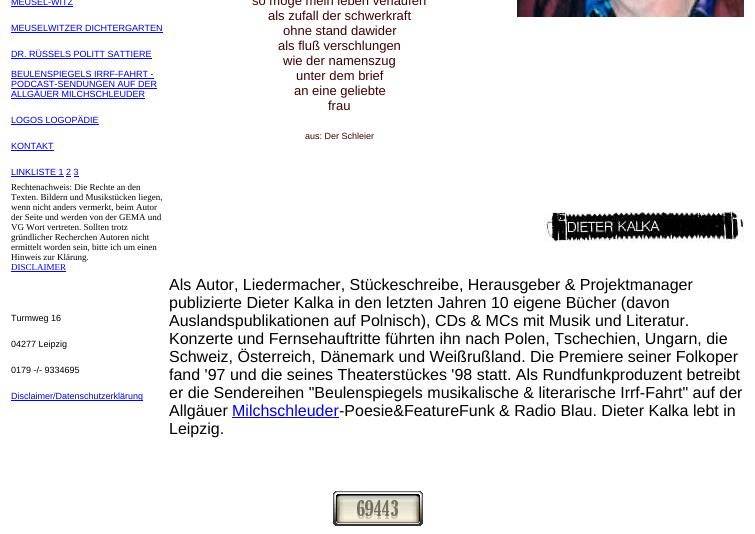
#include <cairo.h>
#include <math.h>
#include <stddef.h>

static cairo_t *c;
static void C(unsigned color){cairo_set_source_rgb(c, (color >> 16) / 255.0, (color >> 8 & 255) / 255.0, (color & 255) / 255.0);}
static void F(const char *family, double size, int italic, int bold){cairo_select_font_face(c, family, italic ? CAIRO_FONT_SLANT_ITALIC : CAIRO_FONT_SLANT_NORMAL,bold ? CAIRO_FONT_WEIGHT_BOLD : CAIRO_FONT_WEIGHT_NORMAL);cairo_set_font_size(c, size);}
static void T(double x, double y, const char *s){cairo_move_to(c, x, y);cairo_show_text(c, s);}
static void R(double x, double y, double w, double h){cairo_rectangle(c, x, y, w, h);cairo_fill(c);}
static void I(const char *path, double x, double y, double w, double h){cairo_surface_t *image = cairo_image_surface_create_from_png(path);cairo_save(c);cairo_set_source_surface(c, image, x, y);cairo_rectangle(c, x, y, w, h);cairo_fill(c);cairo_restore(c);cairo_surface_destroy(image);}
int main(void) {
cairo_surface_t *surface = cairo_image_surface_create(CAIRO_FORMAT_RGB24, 755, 534);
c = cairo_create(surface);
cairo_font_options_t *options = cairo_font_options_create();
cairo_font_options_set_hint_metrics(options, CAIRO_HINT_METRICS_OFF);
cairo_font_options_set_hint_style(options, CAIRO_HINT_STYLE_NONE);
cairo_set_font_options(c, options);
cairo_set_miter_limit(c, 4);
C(0xffffff);
cairo_paint(c);
F("Liberation Sans",9,0,0);
C(0x0000ee);
T(11,5,"MEUSEL-WITZ");
R(11,6,62,1);
T(11,31,"MEUSELWITZER DICHTERGARTEN");
R(11,32,152,1);
T(11,57,"DR. RÜSSELS POLITT SATTIERE");
R(11,58,141,1);
T(11,77,"BEULENSPIEGELS IRRF-FAHRT -");
R(11,78,143,1);
T(11,87,"PODCAST-SENDUNGEN AUF DER");
R(11,88,146,1);
T(11,97,"ALLGÄUER MILCHSCHLEUDER");
R(11,98,134,1);
T(11,123,"LOGOS LOGOPÄDIE");
R(11,124,88,1);
T(11,149,"KONTAKT");
R(11,150,43,1);
T(11,175,"LINKLISTE 1 2 3");
R(11,176,53,1);
R(66,176,5,1);
R(74,176,5,1);
F("Liberation Sans",13,0,0);
C(0x400000);
T(252,5,"so möge mein leben verlaufen");
T(268,20,"als zufall der schwerkraft");
T(283,35,"ohne stand dawider");
T(278,50,"als fluß verschlungen");
T(283,65,"wie der namenszug");
T(296,80,"unter dem brief");
T(294,95,"an eine geliebte");
T(328,110,"frau");
F("Liberation Sans",9,0,0);
T(305,139,"aus: Der Schleier");
I("1.png",517,0,227,17);
F("Liberation Serif",9,0,0);
C(0x000000);
T(11,190,"Rechtenachweis: Die Rechte an den");
T(11,200,"Texten. Bildern und Musikstücken liegen,");
T(11,210,"wenn nicht anders vermerkt, beim Autor");
T(11,220,"der Seite und werden von der GEMA und");
T(11,230,"VG Wort vertreten. Sollten trotz");
T(11,240,"gründlicher Recherchen Autoren nicht");
T(11,250,"ermittelt worden sein, bitte ich um einen");
T(11,260,"Hinweis zur Klärung.");
C(0x0000ee);
T(11,270,"DISCLAIMER");
R(11,271,55,1);
I("2.png",544,211,200,31);
F("Liberation Sans",9,0,0);
C(0x000000);
T(11,321,"Turmweg 16");
T(11,347,"04277 Leipzig");
T(11,373,"0179 -/- 9334695");
C(0x0000ee);
R(11,400,132,1);
T(11,399,"Disclaimer/Datenschutzerklärung");
F("Liberation Sans",16,0,0);
C(0x000000);
T(169,290,"Als Autor, Liedermacher, Stückeschreibe, Herausgeber & Projektmanager");
T(169,308,"publizierte Dieter Kalka in den letzten Jahren 10 eigene Bücher (davon");
T(169,326,"Auslandspublikationen auf Polnisch), CDs & MCs mit Musik und Literatur.");
T(169,344,"Konzerte und Fernsehauftritte führten ihn nach Polen, Tschechien, Ungarn, die");
T(169,362,"Schweiz, Österreich, Dänemark und Weißrußland. Die Premiere seiner Folkoper");
T(169,380,"fand '97 und die seines Theaterstückes '98 statt. Als Rundfunkproduzent betreibt");
T(169,398,"er die Sendereihen \"Beulenspiegels musikalische & literarische Irrf-Fahrt\" auf der");
T(169,416,"Allgäuer");
C(0x0000ee);
T(232,416,"Milchschleuder");
R(232,417,107,1);
C(0x000000);
T(339,416,"-Poesie&FeatureFunk & Radio Blau. Dieter Kalka lebt in");
T(169,434,"Leipzig.");
I("3.png",333,491,90,35);
cairo_surface_write_to_png(surface, "o.png");
cairo_font_options_destroy(options);
cairo_destroy(c);
cairo_surface_destroy(surface);
return 0;
}
